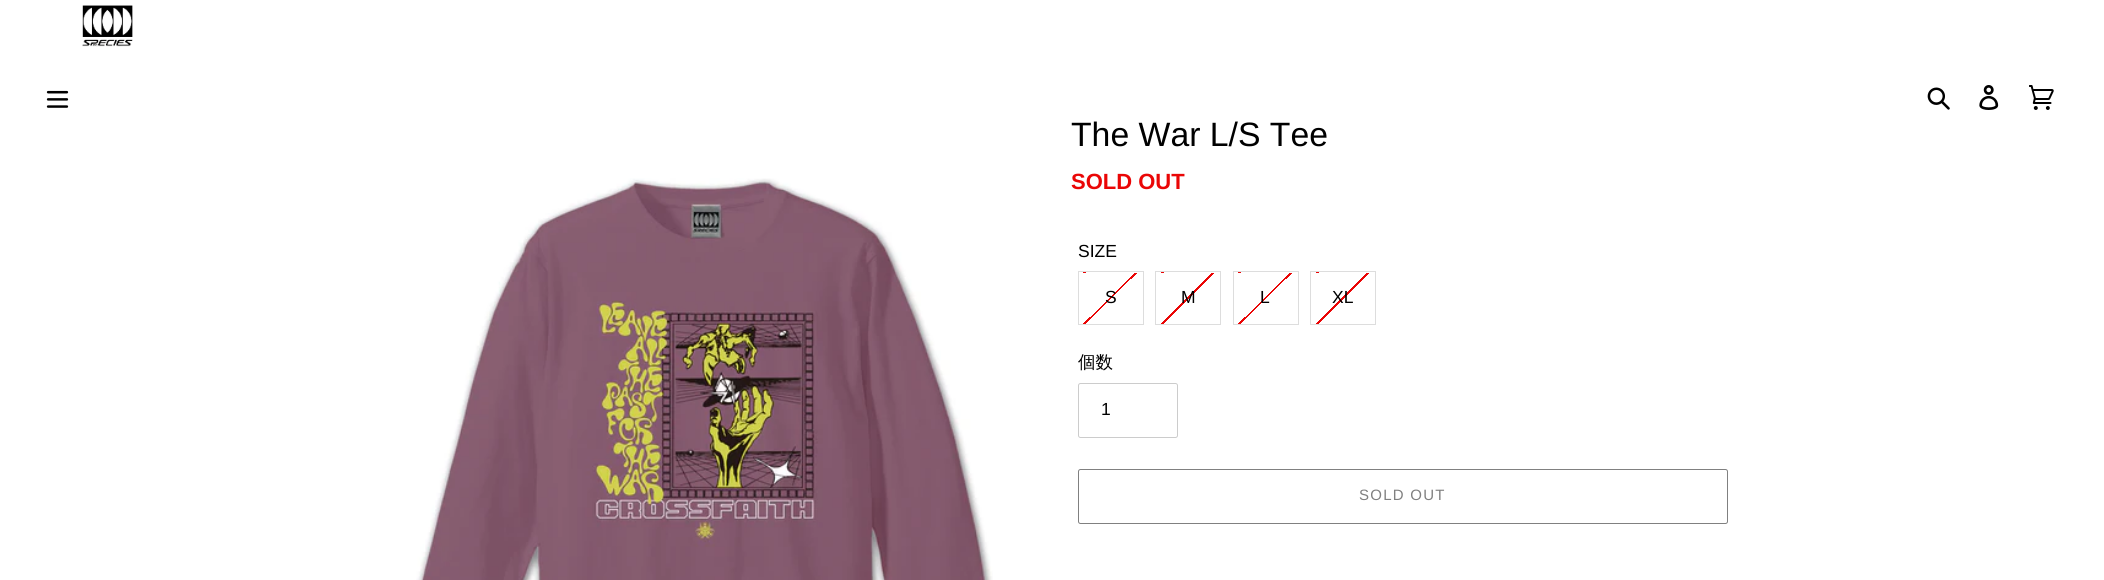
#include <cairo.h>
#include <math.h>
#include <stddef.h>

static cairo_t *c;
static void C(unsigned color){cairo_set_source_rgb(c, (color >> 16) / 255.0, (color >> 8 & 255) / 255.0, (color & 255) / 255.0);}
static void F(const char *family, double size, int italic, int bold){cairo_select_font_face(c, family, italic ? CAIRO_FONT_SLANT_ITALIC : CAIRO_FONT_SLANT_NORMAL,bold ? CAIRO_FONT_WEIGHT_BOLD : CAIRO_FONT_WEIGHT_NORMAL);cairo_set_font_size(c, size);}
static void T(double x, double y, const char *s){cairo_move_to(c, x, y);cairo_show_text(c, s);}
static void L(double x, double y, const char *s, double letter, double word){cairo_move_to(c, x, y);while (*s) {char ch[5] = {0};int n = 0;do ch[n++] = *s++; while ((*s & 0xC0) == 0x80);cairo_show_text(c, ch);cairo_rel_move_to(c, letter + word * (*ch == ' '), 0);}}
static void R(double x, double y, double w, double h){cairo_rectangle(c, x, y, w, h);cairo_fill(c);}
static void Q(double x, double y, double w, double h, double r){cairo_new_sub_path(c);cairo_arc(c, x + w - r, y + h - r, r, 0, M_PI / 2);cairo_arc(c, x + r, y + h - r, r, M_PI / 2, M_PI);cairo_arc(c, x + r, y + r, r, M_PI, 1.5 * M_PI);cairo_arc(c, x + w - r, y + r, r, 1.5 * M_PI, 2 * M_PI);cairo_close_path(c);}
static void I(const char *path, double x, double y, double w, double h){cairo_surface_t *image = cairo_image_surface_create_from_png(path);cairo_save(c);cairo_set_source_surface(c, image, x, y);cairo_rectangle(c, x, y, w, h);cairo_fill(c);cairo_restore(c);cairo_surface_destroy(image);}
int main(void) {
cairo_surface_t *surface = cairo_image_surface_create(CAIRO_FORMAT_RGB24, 2104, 580);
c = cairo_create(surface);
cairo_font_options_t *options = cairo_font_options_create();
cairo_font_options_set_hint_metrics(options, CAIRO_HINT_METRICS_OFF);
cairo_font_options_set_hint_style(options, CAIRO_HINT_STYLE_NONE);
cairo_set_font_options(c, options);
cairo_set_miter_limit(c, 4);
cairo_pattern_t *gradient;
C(0xffffff);
cairo_paint(c);
I("1.png",82,5,51,42);
I("2.png",46,90,23,18);
I("3.png",1927,87,23,23);
I("4.png",1979,85,20,25);
I("5.png",2029,85,25,25);
I("6.png",416,178,577,402);
F("Liberation Sans",33.75,0,0);
C(0x000000);
T(1071,146,"The War L/S Tee");
F("Liberation Sans",22,0,1);
C(0xea0606);
T(1071,189,"SOLD OUT");
F("Liberation Sans",17.5,0,0);
C(0x000000);
T(1078,257,"SIZE");
gradient = cairo_pattern_create_linear(1139,276,1082,218);
cairo_pattern_add_color_stop_rgba(gradient,.49,1,1,1,1);
cairo_pattern_add_color_stop_rgba(gradient,.49,0.918,0.024,0.024,1);
cairo_pattern_add_color_stop_rgba(gradient,.51,0.918,0.024,0.024,1);
cairo_pattern_add_color_stop_rgba(gradient,.51,1,1,1,1);
cairo_pattern_add_color_stop_rgba(gradient,1,1,1,1,1);
cairo_set_source(c,gradient);
cairo_pattern_destroy(gradient);
R(1079,272,7,1);
gradient = cairo_pattern_create_linear(1139,327,1082,269);
cairo_pattern_add_color_stop_rgba(gradient,.49,1,1,1,1);
cairo_pattern_add_color_stop_rgba(gradient,.49,0.918,0.024,0.024,1);
cairo_pattern_add_color_stop_rgba(gradient,.51,0.918,0.024,0.024,1);
cairo_pattern_add_color_stop_rgba(gradient,.51,1,1,1,1);
cairo_pattern_add_color_stop_rgba(gradient,1,1,1,1,1);
cairo_set_source(c,gradient);
cairo_pattern_destroy(gradient);
R(1083,273,54,51);
cairo_rectangle(c,1078.5,271.5,65,53);
C(0xdddddd);
cairo_set_line_width(c,1);
cairo_stroke(c);
C(0x000000);
T(1105,303,"S");
gradient = cairo_pattern_create_linear(1217,276,1159,218);
cairo_pattern_add_color_stop_rgba(gradient,.49,1,1,1,1);
cairo_pattern_add_color_stop_rgba(gradient,.49,0.918,0.024,0.024,1);
cairo_pattern_add_color_stop_rgba(gradient,.51,0.918,0.024,0.024,1);
cairo_pattern_add_color_stop_rgba(gradient,.51,1,1,1,1);
cairo_pattern_add_color_stop_rgba(gradient,1,1,1,1,1);
cairo_set_source(c,gradient);
cairo_pattern_destroy(gradient);
R(1156,272,8,1);
gradient = cairo_pattern_create_linear(1217,327,1159,269);
cairo_pattern_add_color_stop_rgba(gradient,.49,1,1,1,1);
cairo_pattern_add_color_stop_rgba(gradient,.49,0.918,0.024,0.024,1);
cairo_pattern_add_color_stop_rgba(gradient,.51,0.918,0.024,0.024,1);
cairo_pattern_add_color_stop_rgba(gradient,.51,1,1,1,1);
cairo_pattern_add_color_stop_rgba(gradient,1,1,1,1,1);
cairo_set_source(c,gradient);
cairo_pattern_destroy(gradient);
R(1161,273,53,51);
cairo_rectangle(c,1155.5,271.5,65,53);
C(0xdddddd);
cairo_stroke(c);
C(0x000000);
T(1181,303,"M");
gradient = cairo_pattern_create_linear(1294,276,1237,218);
cairo_pattern_add_color_stop_rgba(gradient,.49,1,1,1,1);
cairo_pattern_add_color_stop_rgba(gradient,.49,0.918,0.024,0.024,1);
cairo_pattern_add_color_stop_rgba(gradient,.51,0.918,0.024,0.024,1);
cairo_pattern_add_color_stop_rgba(gradient,.51,1,1,1,1);
cairo_pattern_add_color_stop_rgba(gradient,1,1,1,1,1);
cairo_set_source(c,gradient);
cairo_pattern_destroy(gradient);
R(1234,272,7,1);
gradient = cairo_pattern_create_linear(1294,327,1237,269);
cairo_pattern_add_color_stop_rgba(gradient,.49,1,1,1,1);
cairo_pattern_add_color_stop_rgba(gradient,.49,0.918,0.024,0.024,1);
cairo_pattern_add_color_stop_rgba(gradient,.51,0.918,0.024,0.024,1);
cairo_pattern_add_color_stop_rgba(gradient,.51,1,1,1,1);
cairo_pattern_add_color_stop_rgba(gradient,1,1,1,1,1);
cairo_set_source(c,gradient);
cairo_pattern_destroy(gradient);
R(1238,273,54,51);
cairo_rectangle(c,1233.5,271.5,65,53);
C(0xdddddd);
cairo_stroke(c);
C(0x000000);
T(1260,303,"L");
gradient = cairo_pattern_create_linear(1372,276,1314,218);
cairo_pattern_add_color_stop_rgba(gradient,.49,1,1,1,1);
cairo_pattern_add_color_stop_rgba(gradient,.49,0.918,0.024,0.024,1);
cairo_pattern_add_color_stop_rgba(gradient,.51,0.918,0.024,0.024,1);
cairo_pattern_add_color_stop_rgba(gradient,.51,1,1,1,1);
cairo_pattern_add_color_stop_rgba(gradient,1,1,1,1,1);
cairo_set_source(c,gradient);
cairo_pattern_destroy(gradient);
R(1311,272,8,1);
gradient = cairo_pattern_create_linear(1372,327,1314,269);
cairo_pattern_add_color_stop_rgba(gradient,.49,1,1,1,1);
cairo_pattern_add_color_stop_rgba(gradient,.49,0.918,0.024,0.024,1);
cairo_pattern_add_color_stop_rgba(gradient,.51,0.918,0.024,0.024,1);
cairo_pattern_add_color_stop_rgba(gradient,.51,1,1,1,1);
cairo_pattern_add_color_stop_rgba(gradient,1,1,1,1,1);
cairo_set_source(c,gradient);
cairo_pattern_destroy(gradient);
R(1316,273,53,51);
cairo_rectangle(c,1310.5,271.5,65,53);
C(0xdddddd);
cairo_stroke(c);
C(0x000000);
T(1332,303,"XL");
F("WenQuanYi Zen Hei Medium",17.5,0,0);
T(1078,368,"個数");
Q(1078.5,383.5,99,54,2);
C(0xcccccc);
cairo_stroke(c);
F("Liberation Sans",17.5,0,0);
C(0x000000);
T(1101,415,"1");
Q(1078.5,469.5,649,54,2);
C(0x808080);
cairo_stroke(c);
F("Liberation Sans",15,0,0);
L(1359,500,"SOLD OUT",1.25,0);
cairo_surface_write_to_png(surface, "o.png");
cairo_font_options_destroy(options);
cairo_destroy(c);
cairo_surface_destroy(surface);
return 0;
}
